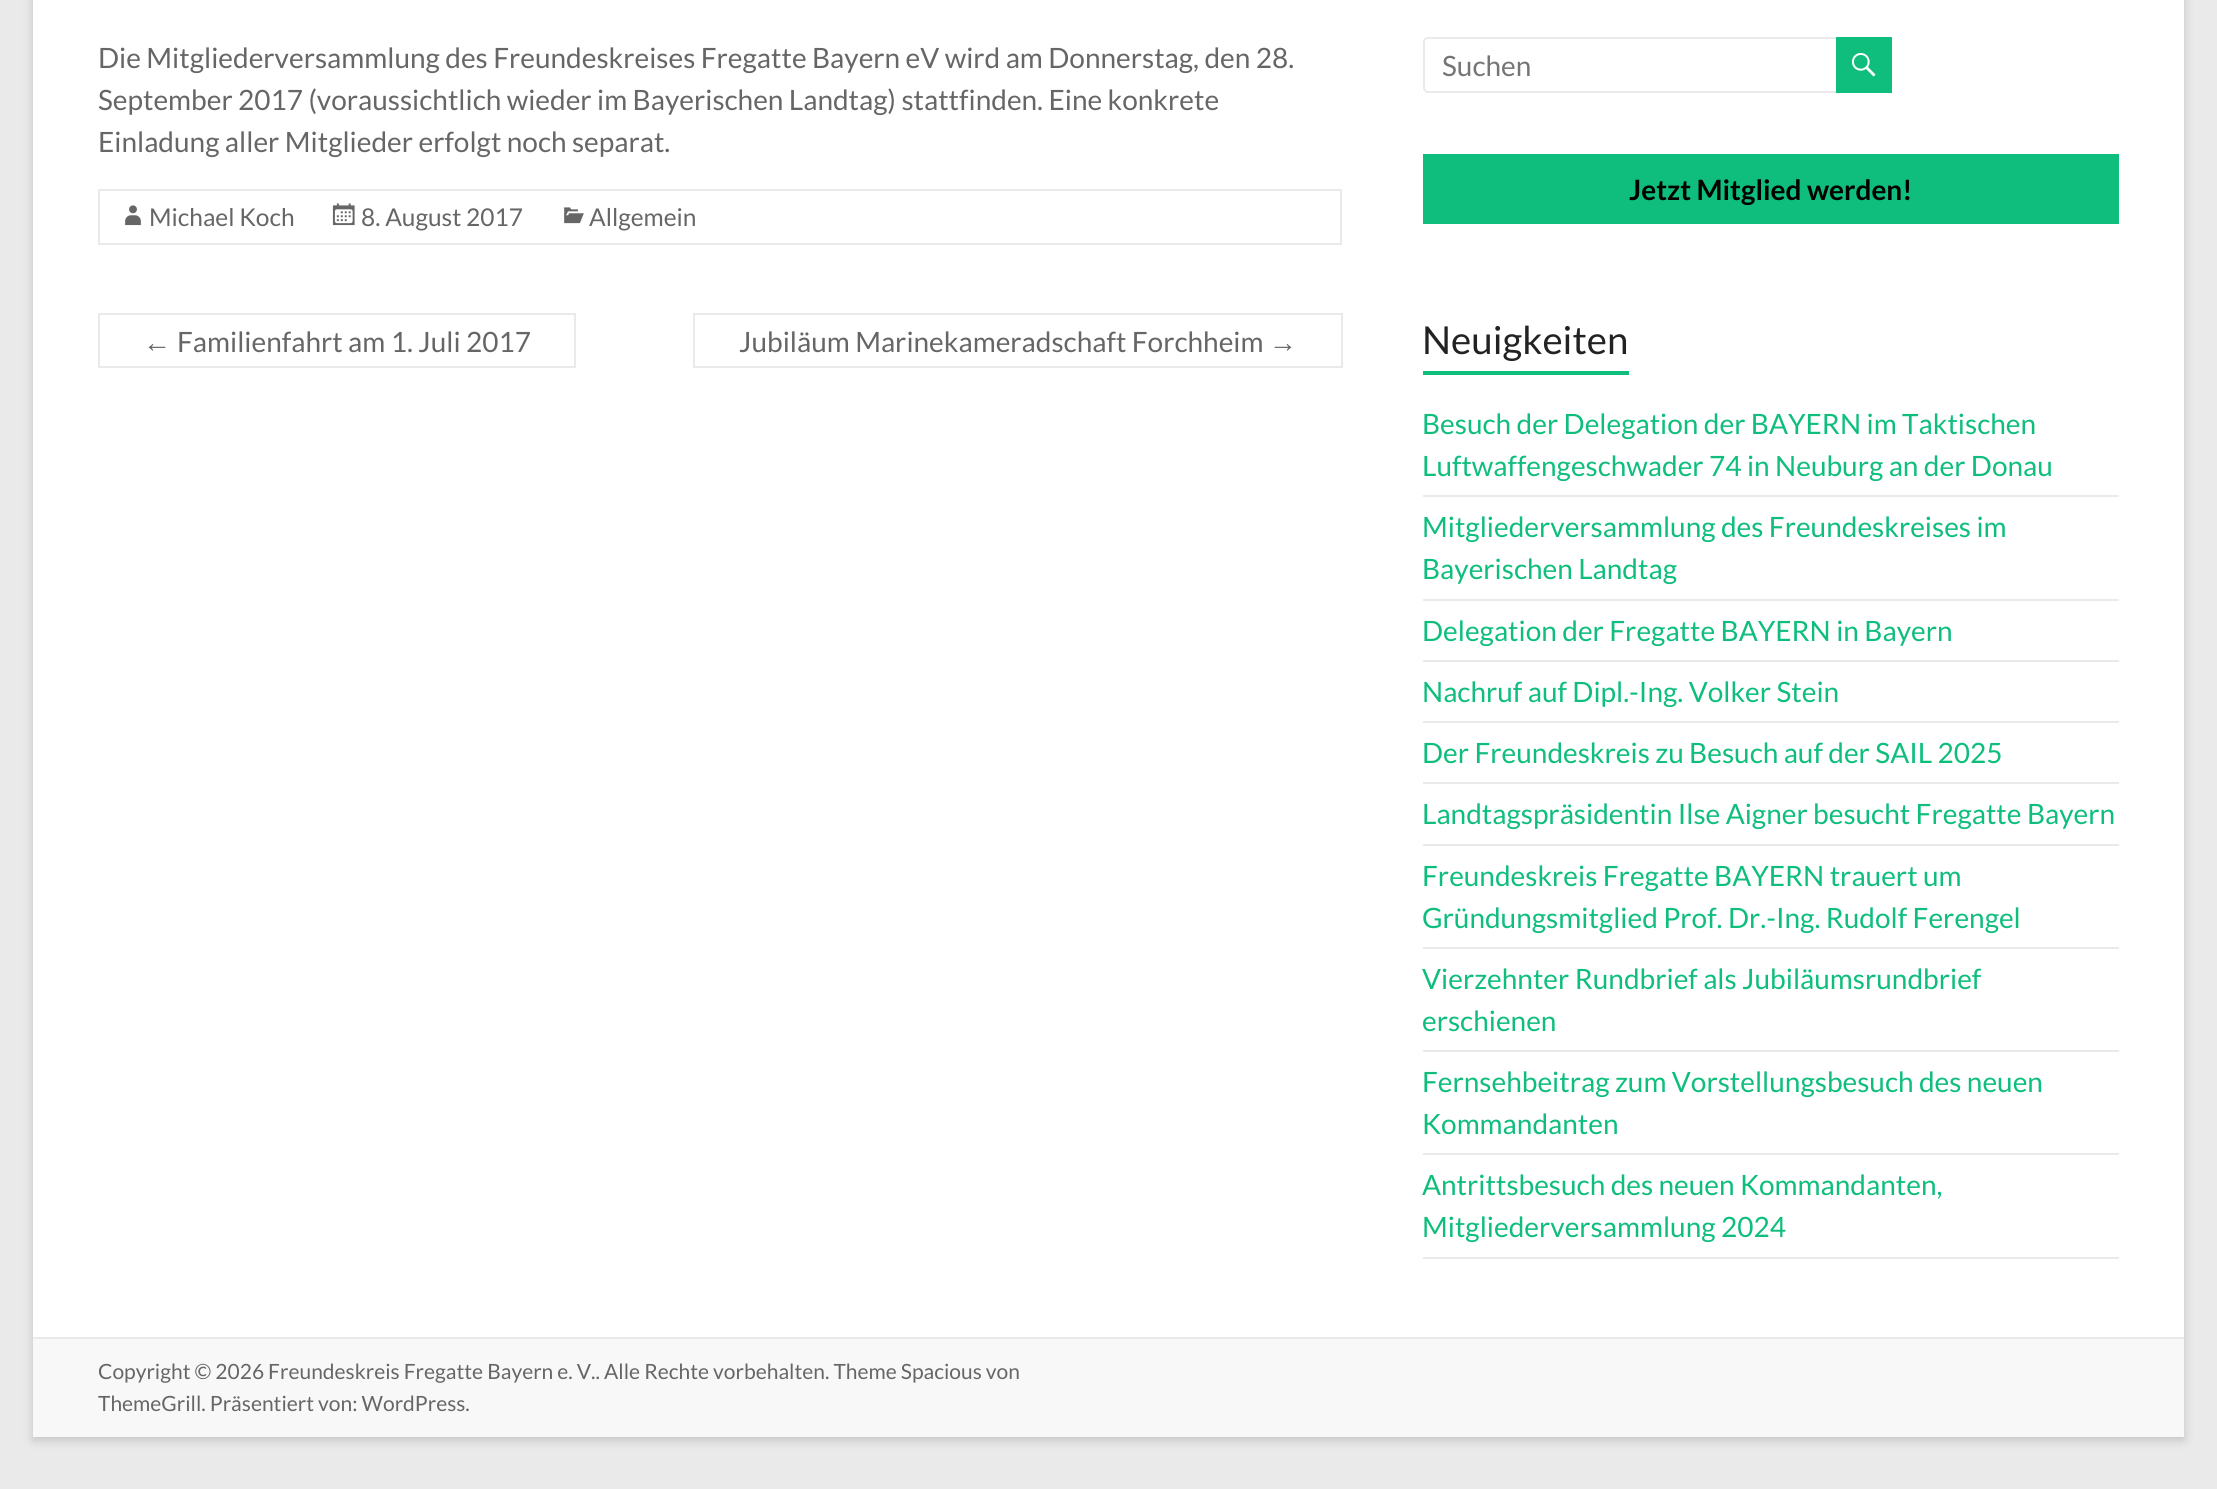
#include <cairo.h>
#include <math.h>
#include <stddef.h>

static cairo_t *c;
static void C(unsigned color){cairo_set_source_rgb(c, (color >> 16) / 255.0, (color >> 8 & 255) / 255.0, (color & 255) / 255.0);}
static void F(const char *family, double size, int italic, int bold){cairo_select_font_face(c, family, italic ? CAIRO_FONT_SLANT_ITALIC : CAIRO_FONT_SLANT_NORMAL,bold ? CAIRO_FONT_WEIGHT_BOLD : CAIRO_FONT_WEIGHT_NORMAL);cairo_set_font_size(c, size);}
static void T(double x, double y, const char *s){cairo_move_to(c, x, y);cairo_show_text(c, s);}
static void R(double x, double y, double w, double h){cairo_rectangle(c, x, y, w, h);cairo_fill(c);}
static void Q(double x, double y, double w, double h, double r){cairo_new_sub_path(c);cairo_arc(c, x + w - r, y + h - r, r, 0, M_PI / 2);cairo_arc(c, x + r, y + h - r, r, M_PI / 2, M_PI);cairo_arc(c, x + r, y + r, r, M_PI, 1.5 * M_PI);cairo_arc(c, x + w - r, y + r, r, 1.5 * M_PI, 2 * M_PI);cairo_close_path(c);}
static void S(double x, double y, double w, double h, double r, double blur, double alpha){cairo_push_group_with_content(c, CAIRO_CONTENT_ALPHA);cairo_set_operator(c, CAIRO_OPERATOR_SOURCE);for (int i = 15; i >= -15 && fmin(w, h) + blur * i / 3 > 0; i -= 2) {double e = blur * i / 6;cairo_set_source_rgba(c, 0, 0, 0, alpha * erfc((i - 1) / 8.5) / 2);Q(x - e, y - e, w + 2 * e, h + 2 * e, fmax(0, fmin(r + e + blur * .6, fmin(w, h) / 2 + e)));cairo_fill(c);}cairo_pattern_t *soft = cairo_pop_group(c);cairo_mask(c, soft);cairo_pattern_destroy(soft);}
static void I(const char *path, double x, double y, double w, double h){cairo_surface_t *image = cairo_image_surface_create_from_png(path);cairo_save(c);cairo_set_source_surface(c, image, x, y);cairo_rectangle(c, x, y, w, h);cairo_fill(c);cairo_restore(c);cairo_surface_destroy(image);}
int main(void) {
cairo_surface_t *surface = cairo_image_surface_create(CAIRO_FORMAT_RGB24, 2217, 1489);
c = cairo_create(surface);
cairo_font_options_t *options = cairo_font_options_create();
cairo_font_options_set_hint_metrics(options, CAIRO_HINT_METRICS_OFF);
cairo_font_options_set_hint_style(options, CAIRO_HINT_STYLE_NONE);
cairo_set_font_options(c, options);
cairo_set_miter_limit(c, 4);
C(0xeaeaea);
cairo_paint(c);
C(0x646464);
S(33,-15,2151,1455,0,5,.3);
C(0xffffff);
R(33,0,2151,1337);
F("Lato",28,0,0);
C(0x666666);
T(98,68,"Die Mitgliederversammlung des Freundeskreises Fregatte Bayern eV wird am Donnerstag, den 28.");
T(98,110,"September 2017 (voraussichtlich wieder im Bayerischen Landtag) stattfinden. Eine konkrete");
T(98,152,"Einladung aller Mitglieder erfolgt noch separat.");
cairo_rectangle(c,99,190,1242,54);
C(0xeaeaea);
cairo_stroke(c);
I("1.png",125,205,16,21);
F("Lato",24.5,0,0);
C(0x666666);
T(149,226,"Michael Koch");
I("2.png",332,203,23,23);
T(361,226,"8. August 2017");
I("3.png",564,207,20,17);
T(589,226,"Allgemein");
F("Liberation Sans",28,0,0);
T(143,352,"←");
C(0xeaeaea);
R(98,366,74,2);
R(98,313,478,2);
R(98,313,2,55);
R(574,313,2,55);
R(172,366,404,2);
F("Lato",28,0,0);
C(0x666666);
T(177,352,"Familienfahrt am 1. Juli 2017");
T(739,352,"Jubiläum Marinekameradschaft Forchheim");
C(0xeaeaea);
R(693,313,649,2);
R(693,366,576,2);
R(693,313,2,55);
F("Liberation Sans",28,0,0);
C(0x666666);
T(1269,352,"→");
C(0xeaeaea);
R(1341,313,2,55);
R(1269,366,73,2);
Q(1424,38,416,54,4);
cairo_stroke(c);
F("Lato",28,0,0);
C(0x757575);
T(1442,76,"Suchen");
C(0x0fbe7c);
R(1836,37,56,56);
I("4.png",1851,52,25,25);
R(1423,154,696,70);
F("Lato",28,0,1);
C(0x000000);
T(1629,200,"Jetzt Mitglied werden!");
F("Lato",38.5,0,0);
C(0x222222);
T(1422,354,"Neuigkeiten");
C(0x0fbe7c);
R(1423,371,206,4);
C(0xeaeaea);
R(1423,495,696,2);
F("Lato",28,0,0);
C(0x0fbe7c);
T(1422,434,"Besuch der Delegation der BAYERN im Taktischen");
T(1422,476,"Luftwaffengeschwader 74 in Neuburg an der Donau");
C(0xeaeaea);
R(1423,599,696,2);
C(0x0fbe7c);
T(1422,537,"Mitgliederversammlung des Freundeskreises im");
T(1422,579,"Bayerischen Landtag");
C(0xeaeaea);
R(1423,660,696,2);
C(0x0fbe7c);
T(1422,641,"Delegation der Fregatte BAYERN in Bayern");
C(0xeaeaea);
R(1423,721,696,2);
C(0x0fbe7c);
T(1422,702,"Nachruf auf Dipl.-Ing. Volker Stein");
C(0xeaeaea);
R(1423,782,696,2);
C(0x0fbe7c);
T(1422,763,"Der Freundeskreis zu Besuch auf der SAIL 2025");
C(0xeaeaea);
R(1423,844,696,2);
C(0x0fbe7c);
T(1422,824,"Landtagspräsidentin Ilse Aigner besucht Fregatte Bayern");
C(0xeaeaea);
R(1423,947,696,2);
C(0x0fbe7c);
T(1422,886,"Freundeskreis Fregatte BAYERN trauert um");
T(1422,928,"Gründungsmitglied Prof. Dr.-Ing. Rudolf Ferengel");
C(0xeaeaea);
R(1423,1050,696,2);
C(0x0fbe7c);
T(1422,989,"Vierzehnter Rundbrief als Jubiläumsrundbrief");
T(1422,1031,"erschienen");
C(0xeaeaea);
R(1423,1153,696,2);
C(0x0fbe7c);
T(1422,1092,"Fernsehbeitrag zum Vorstellungsbesuch des neuen");
T(1422,1134,"Kommandanten");
C(0xeaeaea);
R(1423,1257,696,2);
C(0x0fbe7c);
T(1422,1195,"Antrittsbesuch des neuen Kommandanten,");
T(1422,1237,"Mitgliederversammlung 2024");
C(0xf8f8f8);
R(33,1339,2151,98);
C(0xeaeaea);
R(33,1337,2151,2);
F("Lato",21,0,0);
C(0x666666);
T(98,1379,"Copyright © 2026 Freundeskreis Fregatte Bayern e. V.. Alle Rechte vorbehalten. Theme Spacious von");
T(98,1411,"ThemeGrill. Präsentiert von: WordPress.");
cairo_surface_write_to_png(surface, "o.png");
cairo_font_options_destroy(options);
cairo_destroy(c);
cairo_surface_destroy(surface);
return 0;
}
